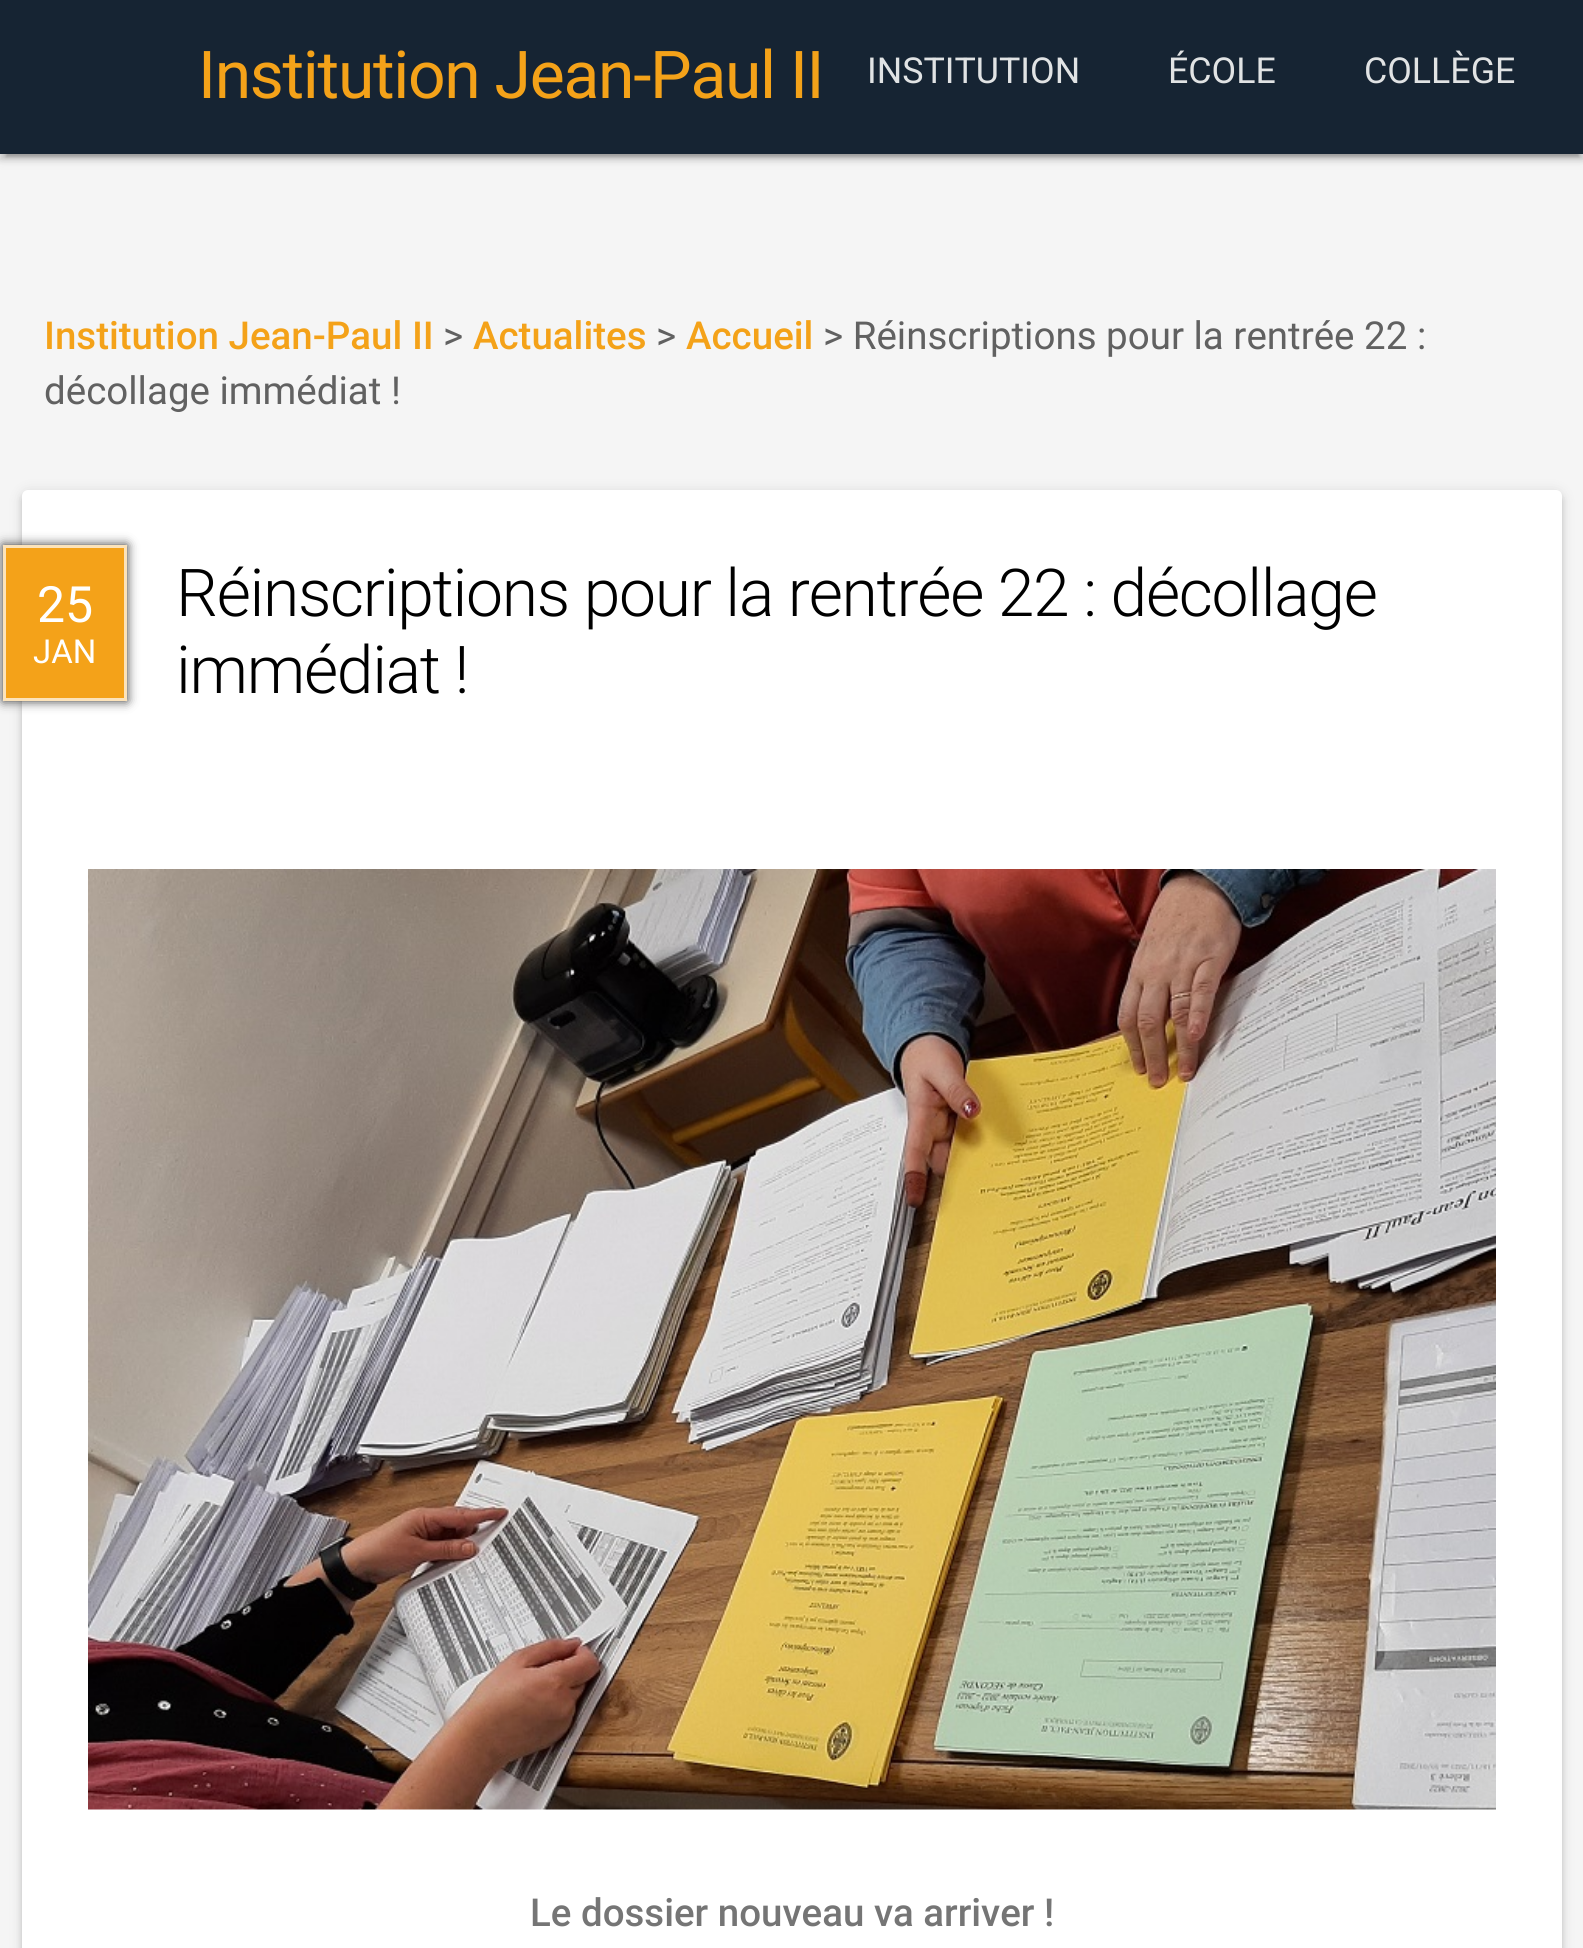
#include <cairo.h>
#include <math.h>
#include <stddef.h>

static cairo_t *c;
static void C(unsigned color){cairo_set_source_rgb(c, (color >> 16) / 255.0, (color >> 8 & 255) / 255.0, (color & 255) / 255.0);}
static void F(const char *family, double size, int italic, int bold){cairo_select_font_face(c, family, italic ? CAIRO_FONT_SLANT_ITALIC : CAIRO_FONT_SLANT_NORMAL,bold ? CAIRO_FONT_WEIGHT_BOLD : CAIRO_FONT_WEIGHT_NORMAL);cairo_set_font_size(c, size);}
static void T(double x, double y, const char *s){cairo_move_to(c, x, y);cairo_show_text(c, s);}
static void L(double x, double y, const char *s, double letter, double word){cairo_move_to(c, x, y);while (*s) {char ch[5] = {0};int n = 0;do ch[n++] = *s++; while ((*s & 0xC0) == 0x80);cairo_show_text(c, ch);cairo_rel_move_to(c, letter + word * (*ch == ' '), 0);}}
static void R(double x, double y, double w, double h){cairo_rectangle(c, x, y, w, h);cairo_fill(c);}
static void Q(double x, double y, double w, double h, double r){cairo_new_sub_path(c);cairo_arc(c, x + w - r, y + h - r, r, 0, M_PI / 2);cairo_arc(c, x + r, y + h - r, r, M_PI / 2, M_PI);cairo_arc(c, x + r, y + r, r, M_PI, 1.5 * M_PI);cairo_arc(c, x + w - r, y + r, r, 1.5 * M_PI, 2 * M_PI);cairo_close_path(c);}
static void S(double x, double y, double w, double h, double r, double blur, double alpha){cairo_push_group_with_content(c, CAIRO_CONTENT_ALPHA);cairo_set_operator(c, CAIRO_OPERATOR_SOURCE);for (int i = 15; i >= -15 && fmin(w, h) + blur * i / 3 > 0; i -= 2) {double e = blur * i / 6;cairo_set_source_rgba(c, 0, 0, 0, alpha * erfc((i - 1) / 8.5) / 2);Q(x - e, y - e, w + 2 * e, h + 2 * e, fmax(0, fmin(r + e + blur * .6, fmin(w, h) / 2 + e)));cairo_fill(c);}cairo_pattern_t *soft = cairo_pop_group(c);cairo_mask(c, soft);cairo_pattern_destroy(soft);}
static void I(const char *path, double x, double y, double w, double h){cairo_surface_t *image = cairo_image_surface_create_from_png(path);cairo_save(c);cairo_set_source_surface(c, image, x, y);cairo_rectangle(c, x, y, w, h);cairo_fill(c);cairo_restore(c);cairo_surface_destroy(image);}
int main(void) {
cairo_surface_t *surface = cairo_image_surface_create(CAIRO_FORMAT_RGB24, 1583, 1948);
c = cairo_create(surface);
cairo_font_options_t *options = cairo_font_options_create();
cairo_font_options_set_hint_metrics(options, CAIRO_HINT_METRICS_OFF);
cairo_font_options_set_hint_style(options, CAIRO_HINT_STYLE_NONE);
cairo_set_font_options(c, options);
cairo_set_miter_limit(c, 4);
C(0xf5f5f5);
cairo_paint(c);
C(0x000000);
S(0,3,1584,154,0,7,.12);
S(6,14,1573,143,0,1.5,.2);
S(0,6,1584,154,0,3,.14);
C(0x162433);
R(0,0,1583,154);
F("Roboto",66,0,0);
C(0xf4a219);
L(198,98,"Institution Jean-Paul II",-1.3,0);
F("Roboto",35.75,0,0);
C(0xe1e3e4);
T(867,83,"INSTITUTION");
T(1168,83,"ÉCOLE");
T(1364,83,"COLLÈGE");
F("Roboto Medium",38.5,0,0);
C(0xf4a219);
T(44,349,"Institution Jean-Paul II");
F("Roboto",38.5,0,0);
C(0x616161);
T(443,349,">");
F("Roboto Medium",38.5,0,0);
C(0xf4a219);
T(473,349,"Actualites");
F("Roboto",38.5,0,0);
C(0x616161);
T(656,349,">");
F("Roboto Medium",38.5,0,0);
C(0xf4a219);
T(686,349,"Accueil");
F("Roboto",38.5,0,0);
C(0x616161);
T(823,349,"> Réinscriptions pour la rentrée 22 :");
T(44,404,"décollage immédiat !");
C(0x000000);
S(22,492,1540,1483,6,7,.12);
S(22,495,1540,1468,6,3,.14);
C(0xffffff);
Q(22,490,1540,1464,6);
cairo_fill(c);
C(0x333333);
S(3,545,124,156,0,5.5,1);
C(0xf4a219);
cairo_rectangle(c,4.5,546.5,121,153);
cairo_fill_preserve(c);
C(0xfce3ba);
cairo_set_line_width(c,3);
cairo_stroke(c);
F("Roboto",50,0,0);
C(0xffffff);
T(37,622,"25");
F("Roboto",33,0,0);
T(33,663,"JAN");
F("Roboto Light",66,0,0);
C(0x000000);
L(176,616,"Réinscriptions pour la rentrée 22 : décollage",-1.3,0);
L(176,693,"immédiat !",-1.3,0);
I("1.png",88,869,1408,941);
F("Roboto Medium",38.5,0,0);
C(0x757575);
T(530,1926,"Le dossier nouveau va arriver !");
cairo_surface_write_to_png(surface, "o.png");
cairo_font_options_destroy(options);
cairo_destroy(c);
cairo_surface_destroy(surface);
return 0;
}
